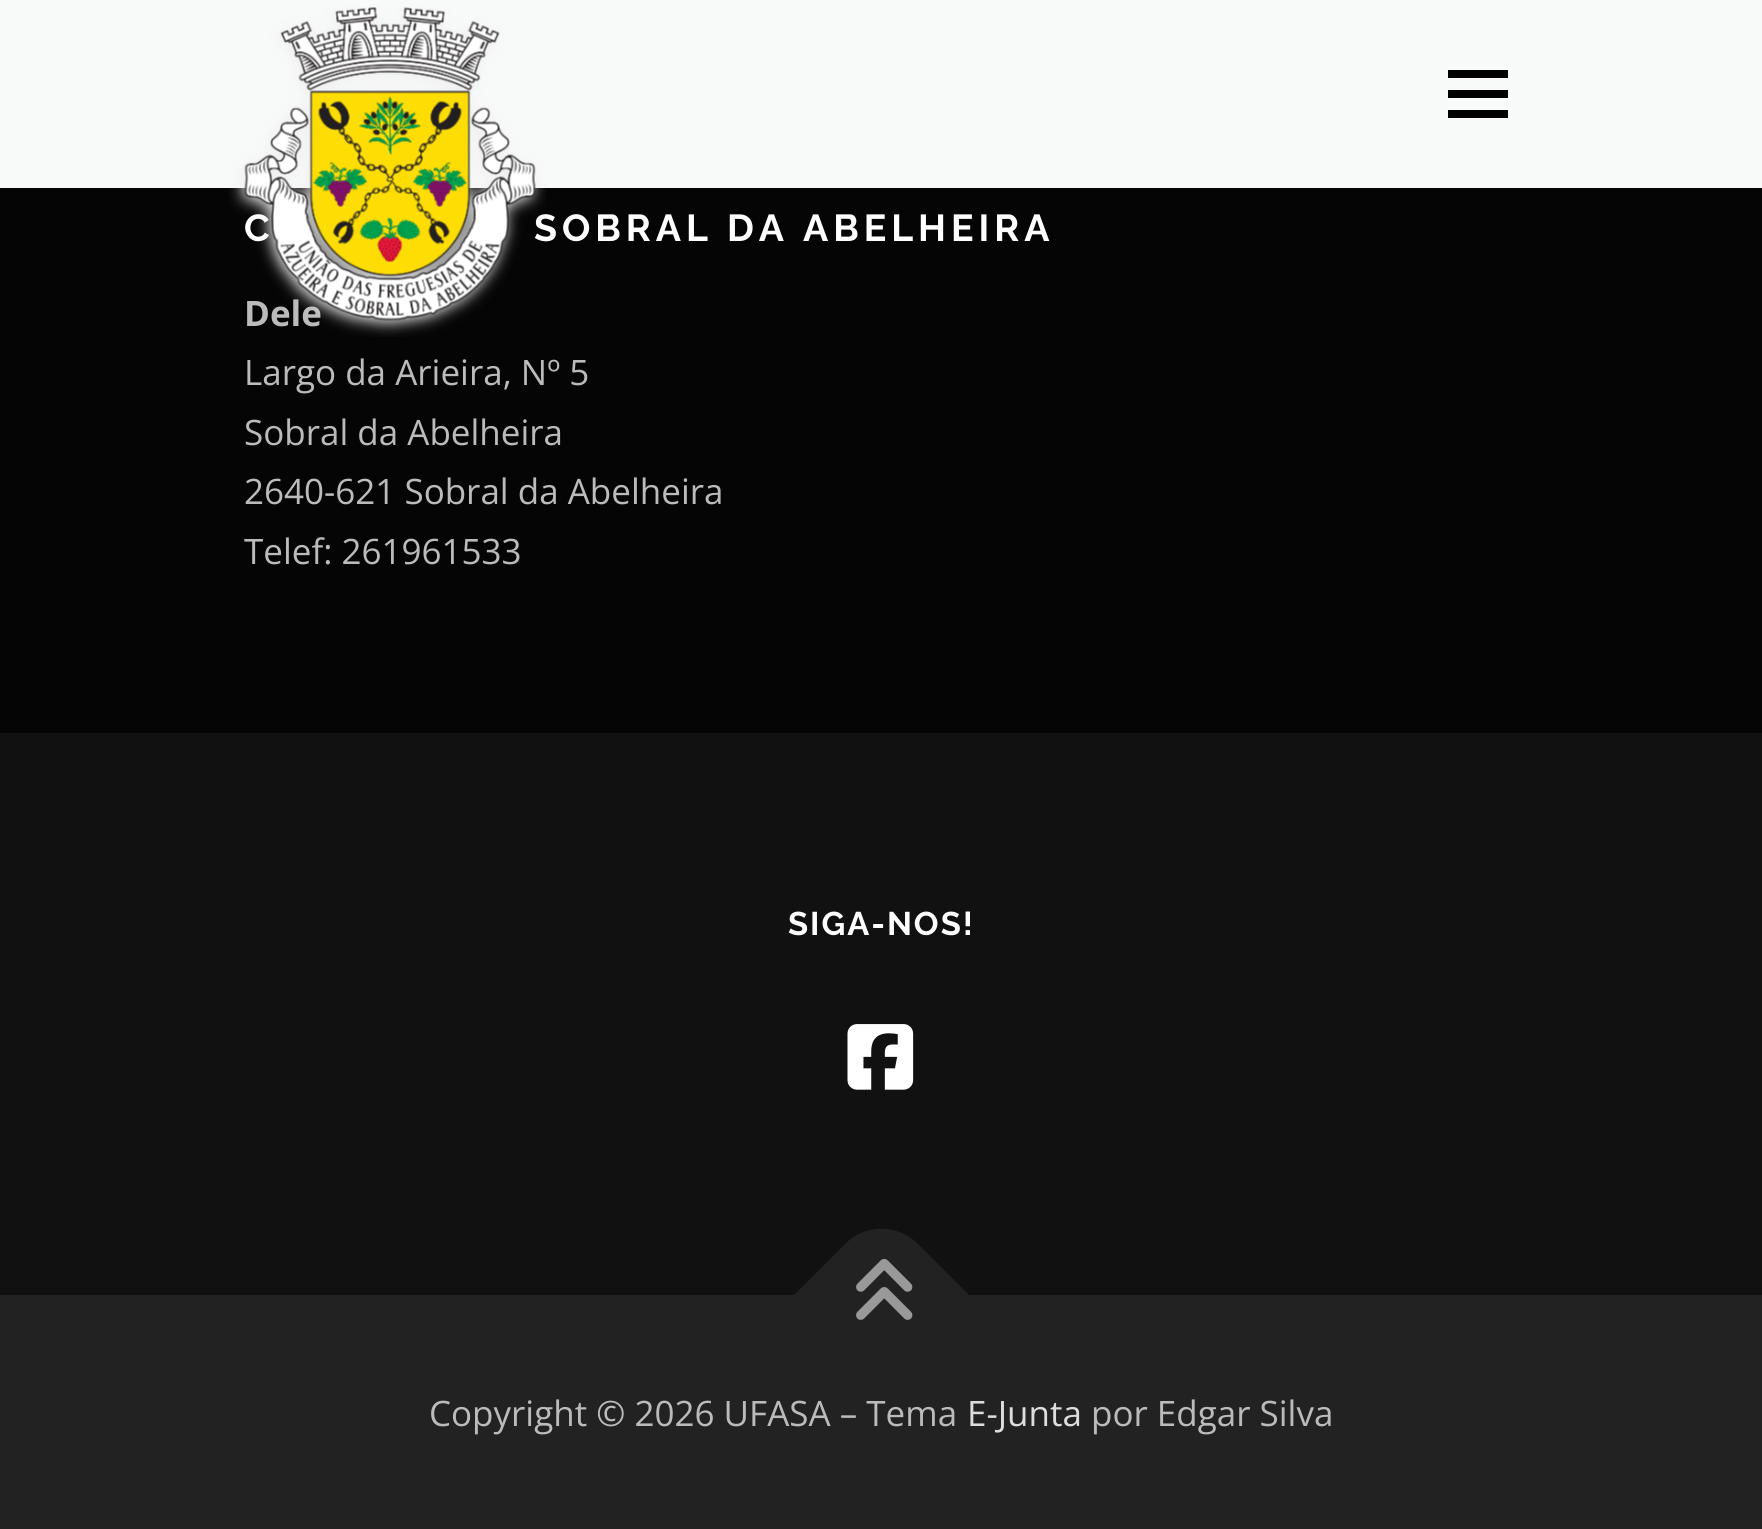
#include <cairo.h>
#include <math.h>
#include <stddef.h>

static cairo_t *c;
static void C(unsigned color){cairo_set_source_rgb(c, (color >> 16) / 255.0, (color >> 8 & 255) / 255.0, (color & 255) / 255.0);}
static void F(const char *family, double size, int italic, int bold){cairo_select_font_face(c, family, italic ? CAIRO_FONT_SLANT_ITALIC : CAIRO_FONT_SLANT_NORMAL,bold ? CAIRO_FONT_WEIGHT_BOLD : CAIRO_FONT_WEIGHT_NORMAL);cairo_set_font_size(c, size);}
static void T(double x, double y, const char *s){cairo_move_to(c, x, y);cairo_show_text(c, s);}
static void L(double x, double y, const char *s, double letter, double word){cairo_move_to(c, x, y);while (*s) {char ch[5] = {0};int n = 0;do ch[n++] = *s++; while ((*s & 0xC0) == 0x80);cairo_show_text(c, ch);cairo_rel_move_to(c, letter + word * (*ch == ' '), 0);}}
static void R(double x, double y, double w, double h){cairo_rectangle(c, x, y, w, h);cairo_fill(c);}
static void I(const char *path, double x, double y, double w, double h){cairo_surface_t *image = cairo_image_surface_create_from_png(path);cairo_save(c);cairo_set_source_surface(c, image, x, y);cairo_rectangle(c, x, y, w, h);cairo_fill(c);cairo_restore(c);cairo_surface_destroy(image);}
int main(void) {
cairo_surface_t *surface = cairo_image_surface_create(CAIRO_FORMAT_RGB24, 1762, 1529);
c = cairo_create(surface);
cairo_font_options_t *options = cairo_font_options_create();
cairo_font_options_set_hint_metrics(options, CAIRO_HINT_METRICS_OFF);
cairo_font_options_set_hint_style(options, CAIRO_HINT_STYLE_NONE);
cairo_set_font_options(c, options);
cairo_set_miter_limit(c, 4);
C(0x111111);
cairo_paint(c);
C(0xf8f9f9);
R(0,0,1762,188);
C(0x050505);
R(0,188,1762,545);
F("Raleway",37.5,0,1);
C(0xffffff);
L(244,241,"C",5,0);
L(534,241,"SOBRAL DA ABELHEIRA",5,0);
F("Open Sans",35,0,1);
C(0xbbbbbb);
T(244,326,"Dele");
I("1.png",229,7,317,330);
C(0x000000);
R(1448,90,60,8);
R(1448,70,60,8);
R(1448,110,60,8);
F("Open Sans",35,0,0);
C(0xbbbbbb);
T(244,385,"Largo da Arieira, Nº 5");
T(244,445,"Sobral da Abelheira");
T(244,504,"2640-621 Sobral da Abelheira");
T(244,564,"Telef: 261961533");
F("Raleway",32.75,0,1);
C(0xffffff);
L(788,935,"SIGA-NOS!",2,0);
I("2.png",847,1024,67,66);
C(0x222222);
R(0,1295,1762,234);
cairo_new_path(c);
cairo_move_to(c,793,1296);
cairo_line_to(c,846,1243);
cairo_curve_to(c,865,1224,897,1224,917,1243);
cairo_line_to(c,970,1296);
cairo_line_to(c,881,1384);
cairo_close_path(c);
cairo_fill(c);
I("3.png",856,1258,57,62);
F("Open Sans",35,0,0);
C(0xbbbbbb);
T(429,1426,"Copyright © 2026 UFASA – Tema");
C(0xdddddd);
T(967,1426,"E-Junta");
C(0xbbbbbb);
T(1091,1426,"por Edgar Silva");
cairo_surface_write_to_png(surface, "o.png");
cairo_font_options_destroy(options);
cairo_destroy(c);
cairo_surface_destroy(surface);
return 0;
}
